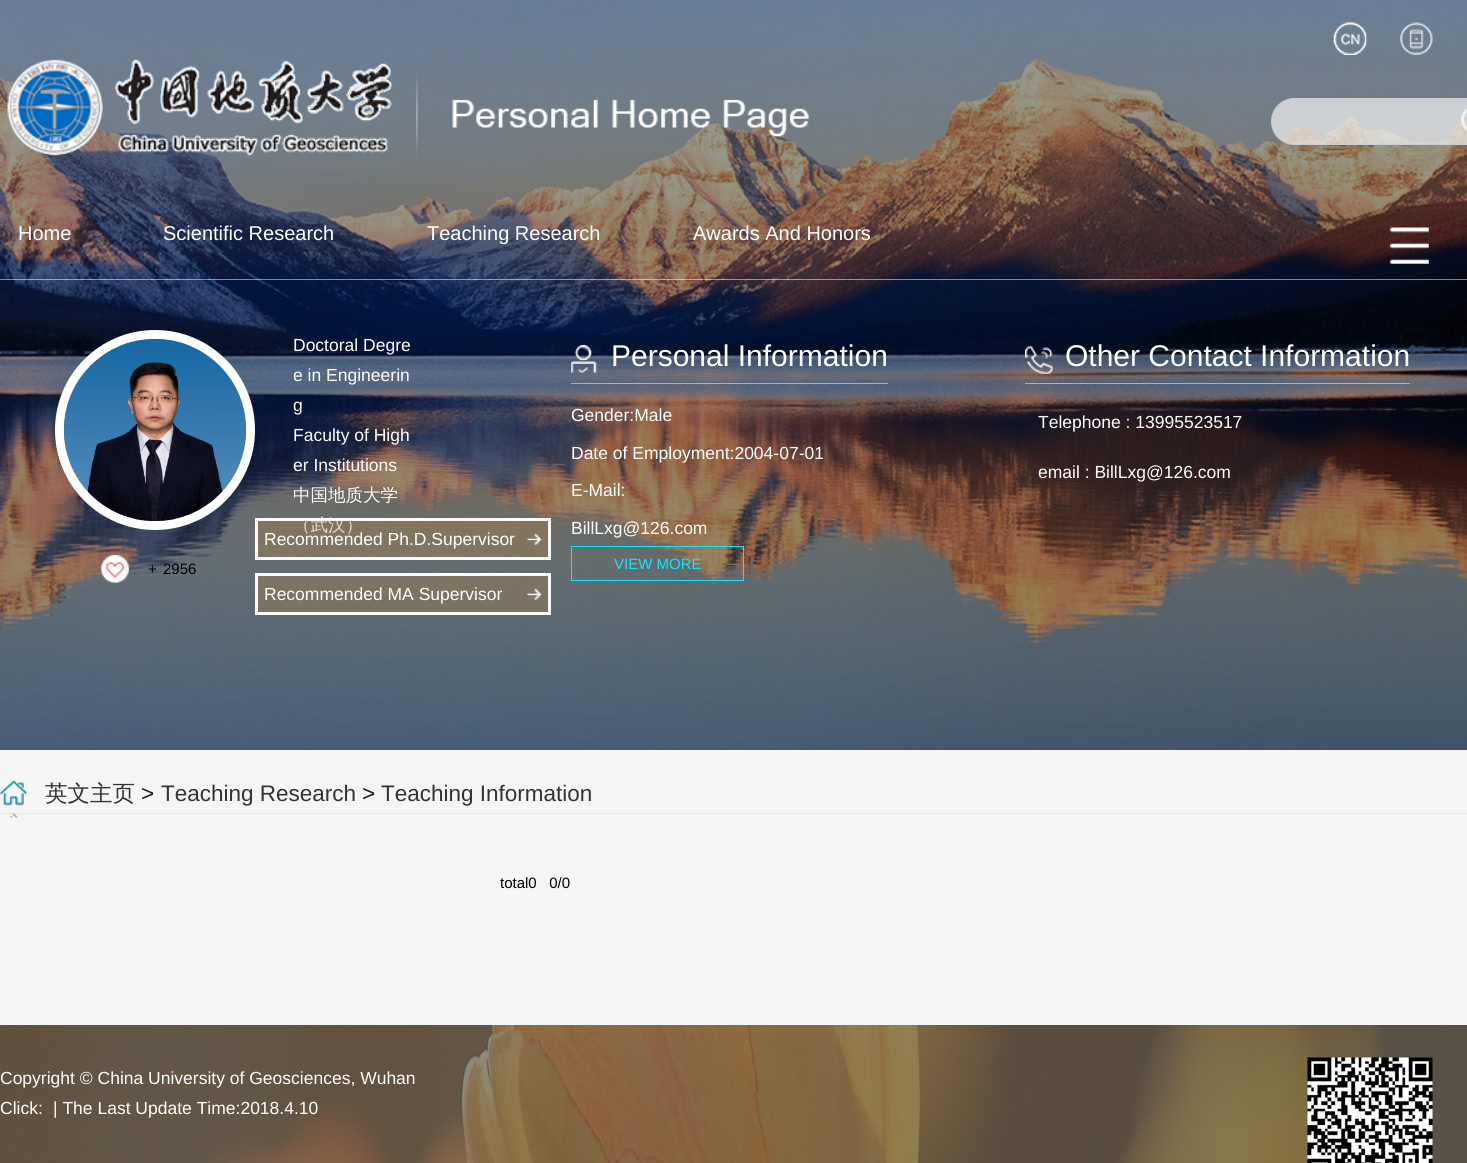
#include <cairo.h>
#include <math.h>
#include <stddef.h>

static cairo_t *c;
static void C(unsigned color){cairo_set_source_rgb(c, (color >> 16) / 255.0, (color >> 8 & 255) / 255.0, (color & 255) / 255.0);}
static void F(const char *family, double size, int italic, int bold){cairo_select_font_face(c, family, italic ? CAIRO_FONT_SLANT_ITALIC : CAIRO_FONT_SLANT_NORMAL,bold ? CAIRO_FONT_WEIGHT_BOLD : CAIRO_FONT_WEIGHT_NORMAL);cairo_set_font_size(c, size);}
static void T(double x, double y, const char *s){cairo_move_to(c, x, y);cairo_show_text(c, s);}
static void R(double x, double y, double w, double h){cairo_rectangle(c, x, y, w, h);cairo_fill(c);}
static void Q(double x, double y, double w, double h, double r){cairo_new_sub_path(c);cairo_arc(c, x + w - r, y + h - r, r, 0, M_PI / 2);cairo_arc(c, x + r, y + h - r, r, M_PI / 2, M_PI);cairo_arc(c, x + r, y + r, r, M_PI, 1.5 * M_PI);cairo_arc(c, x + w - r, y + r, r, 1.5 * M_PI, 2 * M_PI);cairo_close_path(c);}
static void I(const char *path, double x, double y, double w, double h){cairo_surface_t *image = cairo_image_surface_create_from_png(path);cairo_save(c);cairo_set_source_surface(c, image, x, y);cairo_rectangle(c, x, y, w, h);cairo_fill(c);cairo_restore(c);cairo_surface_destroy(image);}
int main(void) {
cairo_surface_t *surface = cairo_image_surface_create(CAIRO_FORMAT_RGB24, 1467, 1163);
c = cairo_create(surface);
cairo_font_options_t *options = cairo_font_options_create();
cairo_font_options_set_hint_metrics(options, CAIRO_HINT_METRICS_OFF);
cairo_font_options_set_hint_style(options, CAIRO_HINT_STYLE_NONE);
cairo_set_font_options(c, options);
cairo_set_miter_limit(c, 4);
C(0xffffff);
cairo_paint(c);
I("1.png",0,0,1467,750);
I("2.png",1333,22,34,33);
I("3.png",1400,22,33,33);
I("4.png",7,59,802,111);
cairo_set_source_rgba(c,1,1,1,0.64);
Q(1271.5,98.5,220,46,23);
cairo_fill_preserve(c);
C(0xc9cdd1);
cairo_set_line_width(c,1);
cairo_stroke(c);
I("5.png",1461,108,6,23);
cairo_set_source_rgba(c,1,1,1,0.5);
R(0,279,1467,1);
F("Liberation Sans",20,0,0);
C(0xffffff);
T(18,240,"Home");
T(163,240,"Scientific Research");
T(427,240,"Teaching Research");
T(693,240,"Awards And Honors");
I("6.png",1389,227,40,37);
F("Liberation Sans",17.5,0,0);
T(293,351,"Doctoral Degre");
T(293,381,"e in Engineerin");
T(293,411,"g");
T(293,441,"Faculty of High");
T(293,471,"er Institutions");
F("WenQuanYi Zen Hei Medium",17.5,0,0);
T(293,501,"中国地质大学");
T(293,531,"（武汉）");
cairo_set_source_rgba(c,0.745,0.522,0.259,0.3);
cairo_rectangle(c,256.5,519.5,293,39);
cairo_fill_preserve(c);
C(0xfafafa);
cairo_set_line_width(c,3);
cairo_stroke(c);
F("Liberation Sans",17.5,0,0);
C(0xffffff);
T(264,545,"Recommended Ph.D.Supervisor");
I("7.png",527,533,15,12);
cairo_set_source_rgba(c,0.745,0.522,0.259,0.3);
cairo_rectangle(c,256.5,574.5,293,39);
cairo_fill_preserve(c);
C(0xfafafa);
cairo_stroke(c);
C(0xffffff);
T(264,600,"Recommended MA Supervisor");
I("8.png",527,588,15,12);
cairo_set_source_rgba(c,1,1,1,0.5);
R(571,383,317,1);
I("9.png",571,345,26,28);
F("Liberation Sans",30,0,0);
C(0xffffff);
T(611,366,"Personal Information");
F("Liberation Sans",17.5,0,0);
T(571,421,"Gender:Male");
T(571,459,"Date of Employment:2004-07-01");
T(571,496,"E-Mail:");
T(571,534,"BillLxg@126.com");
cairo_rectangle(c,571.5,546.5,172,34);
C(0x0fe8fc);
cairo_set_line_width(c,1);
cairo_stroke(c);
F("Liberation Sans",15,0,0);
T(614,569,"VIEW MORE");
cairo_set_source_rgba(c,1,1,1,0.5);
R(1025,383,385,1);
I("10.png",1025,346,28,28);
F("Liberation Sans",30,0,0);
C(0xffffff);
T(1065,366,"Other Contact Information");
F("Liberation Sans",17.5,0,0);
T(1038,428,"Telephone : 13995523517");
T(1038,478,"email : BillLxg@126.com");
cairo_new_path(c);
cairo_arc(c,155,430,100,0,2 * M_PI);
cairo_fill(c);
I("11.png",63,338,184,184);
I("12.png",101,555,28,28);
F("Liberation Sans",15,0,0);
C(0x000000);
T(148,574,"+");
T(163,574,"2956");
C(0xf5f5f5);
R(0,750,1467,275);
C(0xe5e5e5);
R(0,813,1467,1);
I("13.png",0,781,27,37);
F("WenQuanYi Zen Hei Medium",22.5,0,0);
C(0x333333);
T(45,801,"英文主页");
F("Liberation Sans",22.5,0,0);
C(0x191919);
T(141,801,">");
C(0x333333);
T(161,801,"Teaching Research");
C(0x191919);
T(362,801,">");
C(0x333333);
T(381,801,"Teaching Information");
F("Liberation Sans",15,0,0);
C(0x000000);
T(500,888,"total0   0/0");
I("14.png",0,1025,1467,138);
F("Liberation Sans",17.5,0,0);
C(0xffffff);
T(0,1084,"Copyright © China University of Geosciences, Wuhan");
T(0,1114,"Click:");
T(53,1114,"| The Last Update Time:2018.4.10");
I("15.png",1307,1057,126,106);
cairo_surface_write_to_png(surface, "o.png");
cairo_font_options_destroy(options);
cairo_destroy(c);
cairo_surface_destroy(surface);
return 0;
}
